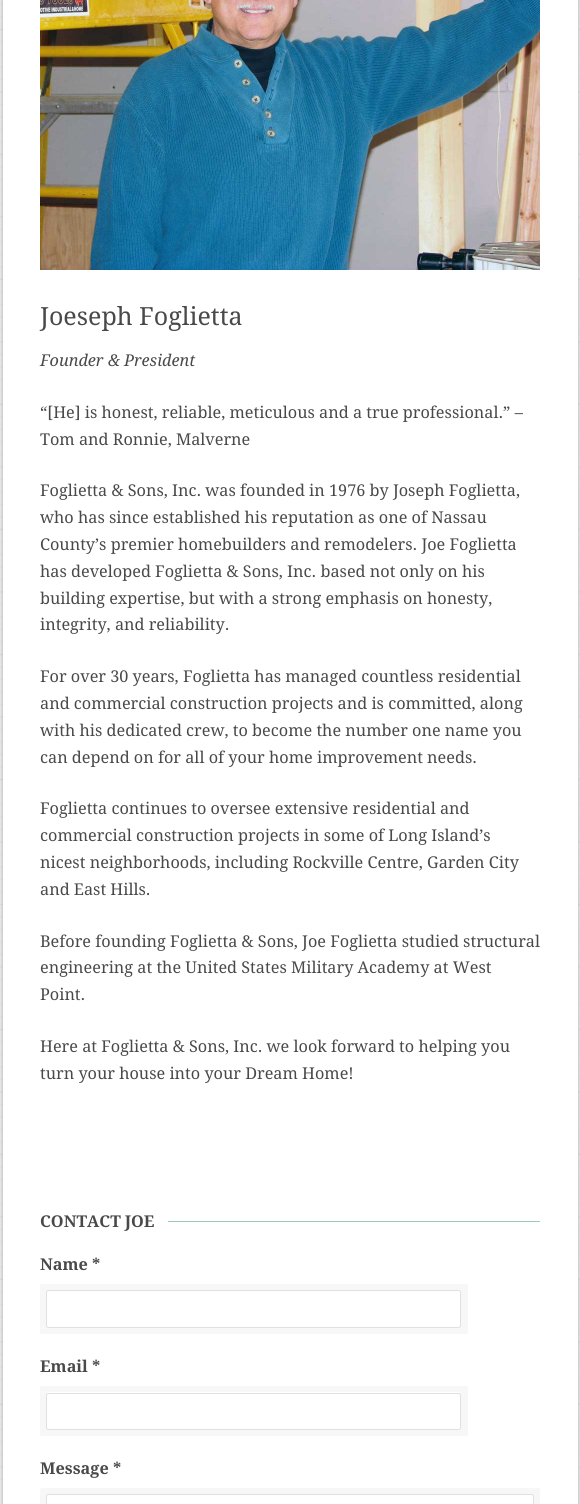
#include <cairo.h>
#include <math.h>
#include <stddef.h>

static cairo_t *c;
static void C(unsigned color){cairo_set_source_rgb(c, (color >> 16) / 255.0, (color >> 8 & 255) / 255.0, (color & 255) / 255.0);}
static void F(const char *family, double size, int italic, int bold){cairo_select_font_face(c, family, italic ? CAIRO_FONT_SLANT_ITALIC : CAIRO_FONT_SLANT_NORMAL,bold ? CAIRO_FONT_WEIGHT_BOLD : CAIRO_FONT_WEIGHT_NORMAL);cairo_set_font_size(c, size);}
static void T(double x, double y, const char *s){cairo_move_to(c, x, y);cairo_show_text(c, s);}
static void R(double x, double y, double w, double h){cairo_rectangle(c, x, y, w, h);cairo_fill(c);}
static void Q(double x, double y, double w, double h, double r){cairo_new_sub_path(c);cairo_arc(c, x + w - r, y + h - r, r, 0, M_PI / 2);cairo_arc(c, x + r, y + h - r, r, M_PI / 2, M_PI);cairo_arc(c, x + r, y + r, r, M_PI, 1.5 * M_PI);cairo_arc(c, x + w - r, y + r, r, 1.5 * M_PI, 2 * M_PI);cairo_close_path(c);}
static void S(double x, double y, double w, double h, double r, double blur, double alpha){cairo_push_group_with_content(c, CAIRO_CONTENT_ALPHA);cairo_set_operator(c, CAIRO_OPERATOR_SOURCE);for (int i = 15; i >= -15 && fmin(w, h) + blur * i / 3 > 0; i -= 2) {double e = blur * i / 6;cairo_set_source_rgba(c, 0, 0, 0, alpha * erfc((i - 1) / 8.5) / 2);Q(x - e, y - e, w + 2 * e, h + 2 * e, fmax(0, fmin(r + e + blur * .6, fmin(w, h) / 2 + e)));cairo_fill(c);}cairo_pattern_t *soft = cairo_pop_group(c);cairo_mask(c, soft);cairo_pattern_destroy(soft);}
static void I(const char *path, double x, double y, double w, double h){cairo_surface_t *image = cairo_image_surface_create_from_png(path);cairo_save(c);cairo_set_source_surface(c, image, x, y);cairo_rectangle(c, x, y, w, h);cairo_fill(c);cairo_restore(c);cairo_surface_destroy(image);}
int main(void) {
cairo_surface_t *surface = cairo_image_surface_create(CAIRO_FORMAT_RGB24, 580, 1504);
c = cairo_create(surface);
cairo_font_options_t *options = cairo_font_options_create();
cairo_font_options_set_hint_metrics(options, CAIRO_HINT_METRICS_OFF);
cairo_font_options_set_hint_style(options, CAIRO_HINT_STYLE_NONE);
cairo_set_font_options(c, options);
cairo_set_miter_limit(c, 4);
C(0xffffff);
cairo_paint(c);
I("1.png",0,4,580,1476);
C(0x000000);
S(3,-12,575,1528,0,4,.4);
C(0xffffff);
R(3,0,575,1504);
I("2.png",40,0,500,270);
F("Droid Serif",25,0,0);
C(0x494949);
T(40,325,"Joeseph Foglietta");
F("Droid Serif",16.25,1,0);
T(40,366,"Founder & President");
F("Droid Serif",16.25,0,0);
T(40,418,"“[He] is honest, reliable, meticulous and a true professional.” –");
T(40,445,"Tom and Ronnie, Malverne");
T(40,496,"Foglietta & Sons, Inc. was founded in 1976 by Joseph Foglietta,");
T(40,523,"who has since established his reputation as one of Nassau");
T(40,550,"County’s premier homebuilders and remodelers. Joe Foglietta");
T(40,577,"has developed Foglietta & Sons, Inc. based not only on his");
T(40,604,"building expertise, but with a strong emphasis on honesty,");
T(40,630,"integrity, and reliability.");
T(40,682,"For over 30 years, Foglietta has managed countless residential");
T(40,709,"and commercial construction projects and is committed, along");
T(40,736,"with his dedicated crew, to become the number one name you");
T(40,763,"can depend on for all of your home improvement needs.");
T(40,814,"Foglietta continues to oversee extensive residential and");
T(40,841,"commercial construction projects in some of Long Island’s");
T(40,868,"nicest neighborhoods, including Rockville Centre, Garden City");
T(40,895,"and East Hills.");
T(40,947,"Before founding Foglietta & Sons, Joe Foglietta studied structural");
T(40,973,"engineering at the United States Military Academy at West");
T(40,1000,"Point.");
T(40,1052,"Here at Foglietta & Sons, Inc. we look forward to helping you");
T(40,1079,"turn your house into your Dream Home!");
F("Droid Serif",16.25,0,1);
T(40,1227,"CONTACT JOE");
C(0x9bc9c2);
R(168,1221,372,1);
C(0x494949);
T(40,1270,"Name *");
C(0xf7f7f7);
cairo_new_path(c);
cairo_move_to(c,42,1296);
cairo_curve_to(c,41,1296,40,1297,40,1298);
cairo_line_to(c,40,1332);
cairo_curve_to(c,40,1333,41,1334,42,1334);
cairo_line_to(c,452,1334);
cairo_curve_to(c,454,1334,455,1333,455,1332);
cairo_line_to(c,455,1328);
cairo_line_to(c,49,1328);
cairo_curve_to(c,47,1328,46,1326,46,1325);
cairo_line_to(c,46,1296);
cairo_close_path(c);
cairo_fill(c);
cairo_new_path(c);
cairo_move_to(c,56,1284);
cairo_curve_to(c,52,1284,53,1288,53,1290);
cairo_line_to(c,459,1290);
cairo_curve_to(c,460,1290,461,1291,461,1292);
cairo_line_to(c,461,1321);
cairo_line_to(c,466,1321);
cairo_curve_to(c,467,1321,468,1320,468,1318);
cairo_line_to(c,468,1286);
cairo_curve_to(c,468,1285,467,1284,466,1284);
cairo_close_path(c);
cairo_fill(c);
cairo_new_path(c);
cairo_move_to(c,46,1297);
cairo_line_to(c,46,1332);
cairo_curve_to(c,46,1333,47,1334,48,1334);
cairo_line_to(c,458,1334);
cairo_curve_to(c,460,1334,461,1333,461,1332);
cairo_line_to(c,461,1326);
cairo_curve_to(c,461,1327,460,1328,459,1328);
cairo_line_to(c,49,1328);
cairo_curve_to(c,47,1328,46,1326,46,1325);
cairo_close_path(c);
cairo_fill(c);
cairo_new_path(c);
cairo_move_to(c,54,1328);
cairo_line_to(c,56,1328);
cairo_line_to(c,466,1328);
cairo_curve_to(c,469,1328,468,1322,468,1320);
cairo_line_to(c,468,1298);
cairo_curve_to(c,468,1288,468,1290,459,1290);
cairo_curve_to(c,460,1290,461,1291,461,1292);
cairo_line_to(c,461,1325);
cairo_curve_to(c,461,1326,460,1328,459,1328);
cairo_close_path(c);
cairo_fill(c);
cairo_new_path(c);
cairo_move_to(c,53,1328);
cairo_line_to(c,53,1332);
cairo_curve_to(c,53,1333,54,1334,56,1334);
cairo_line_to(c,466,1334);
cairo_curve_to(c,467,1334,468,1333,468,1332);
cairo_line_to(c,468,1298);
cairo_curve_to(c,468,1297,467,1296,466,1296);
cairo_line_to(c,461,1296);
cairo_line_to(c,461,1325);
cairo_curve_to(c,461,1326,460,1328,459,1328);
cairo_close_path(c);
cairo_fill(c);
cairo_new_path(c);
cairo_move_to(c,42,1284);
cairo_curve_to(c,41,1284,40,1285,40,1286);
cairo_line_to(c,40,1318);
cairo_curve_to(c,40,1320,41,1321,42,1321);
cairo_line_to(c,46,1321);
cairo_line_to(c,46,1292);
cairo_curve_to(c,46,1291,47,1290,49,1290);
cairo_line_to(c,455,1290);
cairo_curve_to(c,455,1288,456,1284,452,1284);
cairo_close_path(c);
cairo_fill(c);
C(0xffffff);
Q(46.5,1290.5,414,37,2);
cairo_fill_preserve(c);
C(0xe0e0e0);
cairo_set_line_width(c,1);
cairo_stroke(c);
C(0x494949);
T(40,1372,"Email *");
C(0xf7f7f7);
cairo_new_path(c);
cairo_move_to(c,42,1399);
cairo_curve_to(c,41,1399,40,1400,40,1402);
cairo_line_to(c,40,1434);
cairo_curve_to(c,40,1435,41,1436,42,1436);
cairo_line_to(c,452,1436);
cairo_curve_to(c,454,1436,455,1435,455,1434);
cairo_line_to(c,455,1430);
cairo_line_to(c,49,1430);
cairo_curve_to(c,47,1430,46,1429,46,1428);
cairo_line_to(c,46,1399);
cairo_close_path(c);
cairo_fill(c);
cairo_new_path(c);
cairo_move_to(c,56,1386);
cairo_curve_to(c,52,1386,53,1390,53,1392);
cairo_line_to(c,459,1392);
cairo_curve_to(c,460,1392,461,1394,461,1395);
cairo_line_to(c,461,1424);
cairo_line_to(c,466,1424);
cairo_curve_to(c,467,1424,468,1423,468,1422);
cairo_line_to(c,468,1388);
cairo_curve_to(c,468,1387,467,1386,466,1386);
cairo_close_path(c);
cairo_fill(c);
cairo_new_path(c);
cairo_move_to(c,46,1400);
cairo_line_to(c,46,1434);
cairo_curve_to(c,46,1435,47,1436,48,1436);
cairo_line_to(c,458,1436);
cairo_curve_to(c,460,1436,461,1435,461,1434);
cairo_line_to(c,461,1429);
cairo_curve_to(c,461,1429,460,1430,459,1430);
cairo_line_to(c,49,1430);
cairo_curve_to(c,47,1430,46,1429,46,1428);
cairo_close_path(c);
cairo_fill(c);
cairo_new_path(c);
cairo_move_to(c,459,1430);
cairo_line_to(c,465.5,1430);
cairo_curve_to(c,467,1430,468,1429,468,1427.5);
cairo_line_to(c,468,1395.5);
cairo_curve_to(c,468,1394,467,1393,465.5,1393);
cairo_line_to(c,460.5,1393);
cairo_curve_to(c,461,1393.5,461,1394,461,1395);
cairo_line_to(c,461,1427.5);
cairo_curve_to(c,461,1429,460,1430,459,1430);
cairo_close_path(c);
cairo_fill(c);
cairo_new_path(c);
cairo_move_to(c,53,1430);
cairo_line_to(c,53,1434);
cairo_curve_to(c,53,1435,54,1436,56,1436);
cairo_line_to(c,466,1436);
cairo_curve_to(c,467,1436,468,1435,468,1434);
cairo_line_to(c,468,1402);
cairo_curve_to(c,468,1400,467,1399,466,1399);
cairo_line_to(c,461,1399);
cairo_line_to(c,461,1428);
cairo_curve_to(c,461,1429,460,1430,459,1430);
cairo_close_path(c);
cairo_fill(c);
cairo_new_path(c);
cairo_move_to(c,42,1386);
cairo_curve_to(c,41,1386,40,1387,40,1388);
cairo_line_to(c,40,1422);
cairo_curve_to(c,40,1423,41,1424,42,1424);
cairo_line_to(c,46,1424);
cairo_line_to(c,46,1395);
cairo_curve_to(c,46,1394,47,1392,49,1392);
cairo_line_to(c,455,1392);
cairo_curve_to(c,455,1390,456,1386,452,1386);
cairo_close_path(c);
cairo_fill(c);
C(0xffffff);
Q(46.5,1393.5,414,36,2);
cairo_fill_preserve(c);
C(0xe0e0e0);
cairo_stroke(c);
C(0x494949);
T(40,1474,"Message *");
C(0xf7f7f7);
cairo_new_path(c);
cairo_move_to(c,56,1488);
cairo_curve_to(c,52,1488,53,1492,53,1494);
cairo_line_to(c,531,1494);
cairo_curve_to(c,533,1494,534,1495,534,1496);
cairo_line_to(c,534,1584);
cairo_line_to(c,538,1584);
cairo_curve_to(c,539,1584,540,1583,540,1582);
cairo_line_to(c,540,1490);
cairo_curve_to(c,540,1489,539,1488,538,1488);
cairo_close_path(c);
cairo_fill(c);
cairo_new_path(c);
cairo_move_to(c,42,1488);
cairo_curve_to(c,41,1488,40,1489,40,1490);
cairo_line_to(c,40,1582);
cairo_curve_to(c,40,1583,41,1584,42,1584);
cairo_line_to(c,46,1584);
cairo_line_to(c,46,1496);
cairo_curve_to(c,46,1495,47,1494,49,1494);
cairo_line_to(c,528,1494);
cairo_curve_to(c,528,1492,529,1488,526,1488);
cairo_close_path(c);
cairo_fill(c);
Q(46.5,1494.5,487,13,2);
C(0xe0e0e0);
cairo_stroke(c);
cairo_surface_write_to_png(surface, "o.png");
cairo_font_options_destroy(options);
cairo_destroy(c);
cairo_surface_destroy(surface);
return 0;
}
